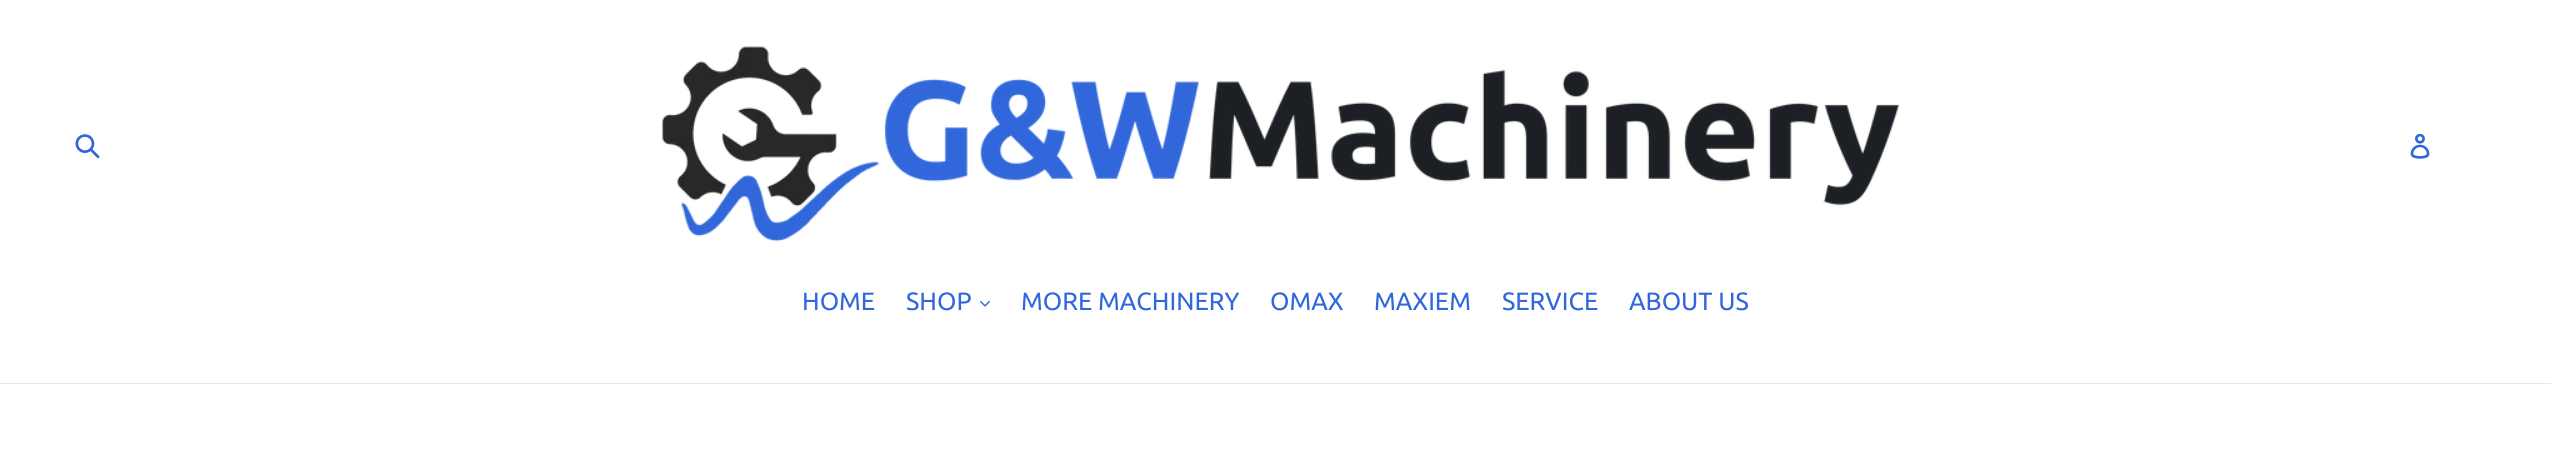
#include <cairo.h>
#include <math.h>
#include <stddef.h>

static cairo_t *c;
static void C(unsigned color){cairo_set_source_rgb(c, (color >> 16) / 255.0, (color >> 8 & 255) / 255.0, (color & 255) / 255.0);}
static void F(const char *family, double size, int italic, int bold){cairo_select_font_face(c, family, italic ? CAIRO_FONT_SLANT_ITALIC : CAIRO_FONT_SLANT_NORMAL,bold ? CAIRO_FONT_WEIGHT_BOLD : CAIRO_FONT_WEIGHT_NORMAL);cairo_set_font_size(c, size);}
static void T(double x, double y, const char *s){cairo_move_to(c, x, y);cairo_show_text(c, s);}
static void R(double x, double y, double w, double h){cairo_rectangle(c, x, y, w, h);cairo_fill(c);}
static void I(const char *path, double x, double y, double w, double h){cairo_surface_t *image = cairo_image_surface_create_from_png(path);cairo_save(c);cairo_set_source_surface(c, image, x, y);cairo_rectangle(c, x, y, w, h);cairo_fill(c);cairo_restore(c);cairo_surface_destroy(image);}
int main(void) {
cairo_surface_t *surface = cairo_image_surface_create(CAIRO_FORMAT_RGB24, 2551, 459);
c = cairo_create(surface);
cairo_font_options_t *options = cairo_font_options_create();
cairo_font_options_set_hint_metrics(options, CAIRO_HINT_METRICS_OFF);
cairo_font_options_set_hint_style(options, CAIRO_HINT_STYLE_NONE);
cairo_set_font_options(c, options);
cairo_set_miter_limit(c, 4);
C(0xffffff);
cairo_paint(c);
I("1.png",75,134,25,25);
I("2.png",662,46,1237,196);
I("3.png",2410,134,20,25);
C(0xe8e9eb);
R(0,383,2551,1);
F("Ubuntu",25,0,0);
C(0x3167db);
T(802,310,"HOME");
T(906,310,"SHOP");
I("4.png",980,300,10,7);
T(1021,310,"MORE MACHINERY");
T(1270,310,"OMAX");
T(1374,310,"MAXIEM");
T(1502,310,"SERVICE");
T(1629,310,"ABOUT US");
cairo_surface_write_to_png(surface, "o.png");
cairo_font_options_destroy(options);
cairo_destroy(c);
cairo_surface_destroy(surface);
return 0;
}
